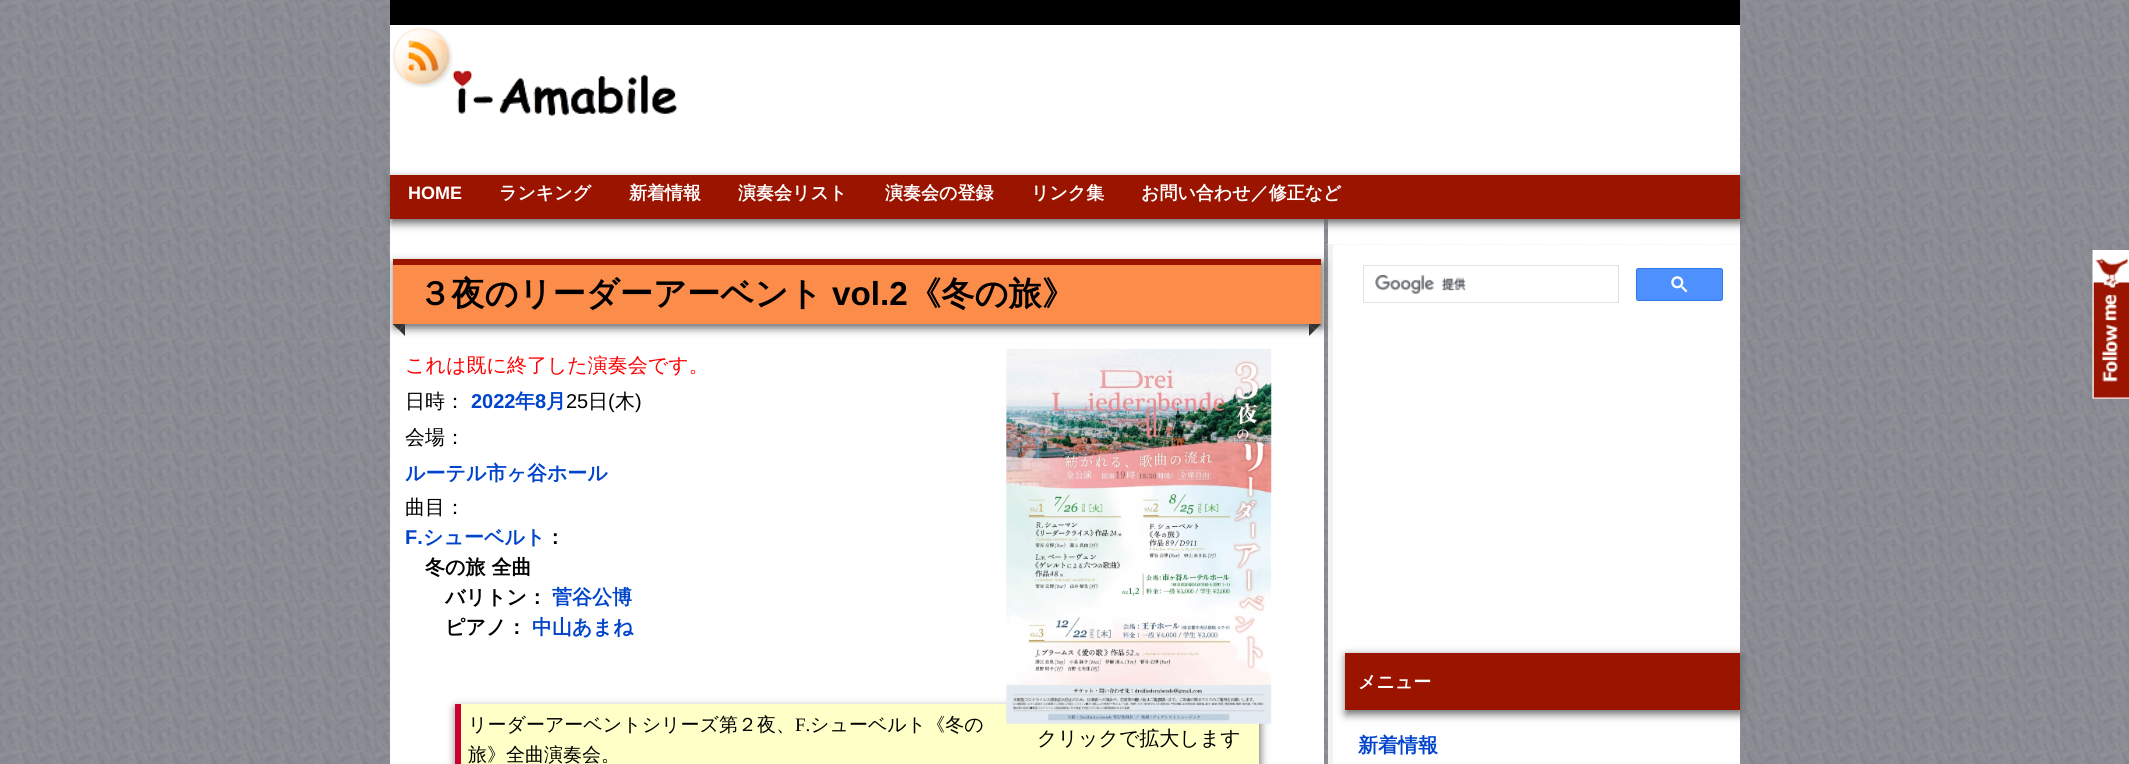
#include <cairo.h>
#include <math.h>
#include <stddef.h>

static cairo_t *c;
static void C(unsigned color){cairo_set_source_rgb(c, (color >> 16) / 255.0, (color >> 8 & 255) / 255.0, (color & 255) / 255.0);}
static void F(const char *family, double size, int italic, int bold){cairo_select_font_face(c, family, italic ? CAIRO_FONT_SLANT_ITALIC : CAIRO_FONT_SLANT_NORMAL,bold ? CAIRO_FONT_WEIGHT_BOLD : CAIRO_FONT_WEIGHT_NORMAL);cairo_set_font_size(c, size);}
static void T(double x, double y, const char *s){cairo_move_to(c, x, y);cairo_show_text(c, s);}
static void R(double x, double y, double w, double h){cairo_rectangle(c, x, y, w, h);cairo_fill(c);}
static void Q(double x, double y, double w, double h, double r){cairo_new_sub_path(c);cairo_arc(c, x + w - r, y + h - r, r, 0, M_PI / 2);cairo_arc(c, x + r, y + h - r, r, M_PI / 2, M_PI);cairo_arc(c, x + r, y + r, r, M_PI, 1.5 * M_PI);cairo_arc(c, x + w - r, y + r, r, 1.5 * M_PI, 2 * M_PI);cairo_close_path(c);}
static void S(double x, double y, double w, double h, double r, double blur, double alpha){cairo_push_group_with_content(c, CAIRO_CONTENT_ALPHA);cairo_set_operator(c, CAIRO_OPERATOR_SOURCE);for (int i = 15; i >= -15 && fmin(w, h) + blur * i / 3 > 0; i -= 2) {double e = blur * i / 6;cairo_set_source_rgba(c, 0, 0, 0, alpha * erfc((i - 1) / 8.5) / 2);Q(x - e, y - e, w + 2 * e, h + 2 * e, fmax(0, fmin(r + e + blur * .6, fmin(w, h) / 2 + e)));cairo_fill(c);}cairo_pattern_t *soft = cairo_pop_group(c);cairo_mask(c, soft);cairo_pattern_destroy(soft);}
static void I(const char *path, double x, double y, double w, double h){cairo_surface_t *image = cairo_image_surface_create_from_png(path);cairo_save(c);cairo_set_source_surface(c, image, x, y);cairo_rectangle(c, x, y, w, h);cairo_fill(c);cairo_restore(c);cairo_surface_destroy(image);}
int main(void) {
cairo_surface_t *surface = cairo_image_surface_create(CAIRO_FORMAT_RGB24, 2129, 764);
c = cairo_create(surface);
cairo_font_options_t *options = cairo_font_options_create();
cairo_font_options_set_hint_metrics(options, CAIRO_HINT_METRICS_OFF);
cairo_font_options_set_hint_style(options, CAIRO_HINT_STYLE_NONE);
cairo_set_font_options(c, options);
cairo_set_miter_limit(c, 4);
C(0xffffff);
cairo_paint(c);
I("1.png",0,0,2129,764);
C(0xffffff);
R(390,25,1350,150);
C(0x000000);
R(390,0,1350,25);
I("2.png",392,27,61,61);
I("3.png",452,70,225,47);
C(0xffffff);
R(390,219,934,545);
R(1328,219,412,545);
C(0x666666);
S(391,179,1350,44,0,4.5,1);
C(0x9a1400);
R(390,175,1350,44);
F("Liberation Sans",18,0,1);
C(0xffffff);
T(408,199,"HOME");
F("WenQuanYi Zen Hei",18,0,1);
T(499,199,"ランキング");
T(629,199,"新着情報");
T(738,199,"演奏会リスト");
T(885,199,"演奏会の登録");
T(1031,199,"リンク集");
T(1141,199,"お問い合わせ／修正など");
cairo_new_path(c);
cairo_move_to(c,1327.5,244.5);
cairo_line_to(c,1740,244.5);
C(0xf2f2f2);
cairo_set_line_width(c,1.2);
cairo_set_dash(c,(double[]){1.25,1.25},2,0);
cairo_stroke(c);
R(1328,244,5,520);
C(0x666666);
S(394,263,929,65,0,4.5,1);
C(0xfc8c4a);
R(393,265,928,59);
C(0x9a1400);
R(393,259,928,6);
F("WenQuanYi Zen Hei",33.25,0,1);
C(0x000000);
T(418,305,"３夜のリーダーアーベント");
F("Liberation Sans",33.25,0,1);
T(832,305,"vol.2");
F("WenQuanYi Zen Hei",33.25,0,1);
T(908,305,"《冬の旅》");
C(0x333333);
cairo_new_path(c);
cairo_move_to(c,392.5,324);
cairo_line_to(c,405,324);
cairo_line_to(c,399,330);
cairo_close_path(c);
cairo_fill(c);
cairo_new_path(c);
cairo_move_to(c,405,324);
cairo_line_to(c,405,336);
cairo_line_to(c,399,330);
cairo_close_path(c);
cairo_fill(c);
cairo_new_path(c);
cairo_move_to(c,1309,324);
cairo_line_to(c,1321,324);
cairo_line_to(c,1315,330);
cairo_close_path(c);
cairo_fill(c);
cairo_new_path(c);
cairo_move_to(c,1309,336);
cairo_line_to(c,1309,324);
cairo_line_to(c,1315,330);
cairo_close_path(c);
cairo_fill(c);
F("WenQuanYi Zen Hei Medium",20,0,0);
C(0xff0000);
T(405,372,"これは既に終了した演奏会です。");
C(0x000000);
T(405,408,"日時：");
F("Liberation Sans",20,0,1);
C(0x0044cc);
T(471,408,"2022");
F("WenQuanYi Zen Hei",20,0,1);
T(515,408,"年");
F("Liberation Sans",20,0,1);
T(535,408,"8");
F("WenQuanYi Zen Hei",20,0,1);
T(546,408,"月");
F("Liberation Sans",20,0,0);
C(0x000000);
T(566,408,"25");
F("WenQuanYi Zen Hei Medium",20,0,0);
T(588,408,"日");
F("Liberation Sans",20,0,0);
T(608,408,"(");
F("WenQuanYi Zen Hei Medium",20,0,0);
T(615,408,"木");
F("Liberation Sans",20,0,0);
T(635,408,")");
F("WenQuanYi Zen Hei Medium",20,0,0);
T(405,444,"会場：");
F("WenQuanYi Zen Hei",20,0,1);
C(0x0044cc);
T(405,480,"ルーテル市ヶ谷ホール");
F("WenQuanYi Zen Hei Medium",20,0,0);
C(0x000000);
T(405,514,"曲目：");
F("Liberation Sans",20,0,1);
C(0x0044cc);
T(405,544,"F.");
F("WenQuanYi Zen Hei",20,0,1);
T(423,544,"シューベルト");
C(0x000000);
T(545,544,"：");
T(425,574,"冬の旅 全曲");
T(445,604,"バリトン：");
C(0x0044cc);
T(552,604,"菅谷公博");
C(0x000000);
T(445,634,"ピアノ：");
C(0x0044cc);
T(532,634,"中山あまね");
C(0x666666);
S(456,708,804,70,0,4.5,1);
C(0xffffc8);
R(461,704,798,60);
C(0xcc0033);
R(455,704,6,60);
F("WenQuanYi Zen Hei Medium",19,0,0);
C(0x000000);
T(468,731,"リーダーアーベントシリーズ第２夜、");
F("Liberation Serif",19,0,0);
T(795,731,"F.");
F("WenQuanYi Zen Hei Medium",19,0,0);
T(810,731,"シューベルト《冬の");
T(468,761,"旅》全曲演奏会。");
I("4.png",1006,348,266,376);
F("WenQuanYi Zen Hei Medium",20,0,0);
T(1037,745,"クリックで拡大します");
cairo_rectangle(c,1363.5,265.5,255,37);
C(0xdfe1e5);
cairo_set_line_width(c,1);
cairo_set_dash(c,NULL,0,0);
cairo_stroke(c);
I("5.png",1375,275,91,19);
C(0x4d90fe);
Q(1636.5,268.5,86,32,2);
cairo_fill_preserve(c);
C(0x3079ed);
cairo_stroke(c);
I("6.png",1671,276,17,17);
C(0x666666);
S(1346,656,395,58,0,4.5,1);
C(0x9a1400);
R(1345,653,395,57);
F("WenQuanYi Zen Hei",18,0,1);
C(0xffffff);
T(1358,688,"メニュー");
F("WenQuanYi Zen Hei",20,0,1);
C(0x0044cc);
T(1358,752,"新着情報");
C(0x9a1400);
R(2093,257,36,142);
I("7.png",2092,250,37,149);
cairo_surface_write_to_png(surface, "o.png");
cairo_font_options_destroy(options);
cairo_destroy(c);
cairo_surface_destroy(surface);
return 0;
}
